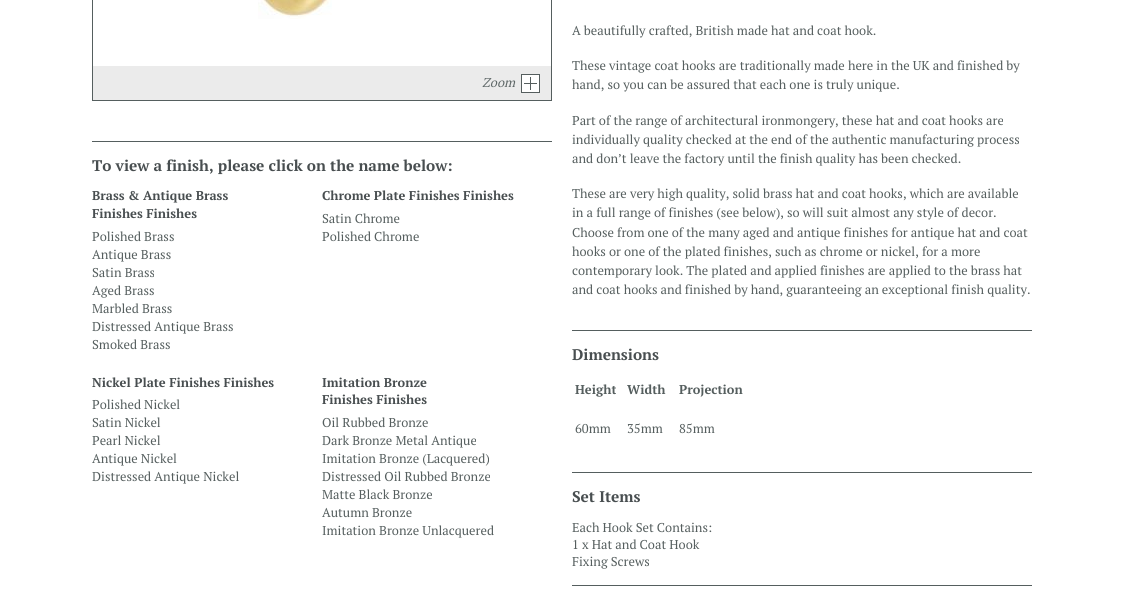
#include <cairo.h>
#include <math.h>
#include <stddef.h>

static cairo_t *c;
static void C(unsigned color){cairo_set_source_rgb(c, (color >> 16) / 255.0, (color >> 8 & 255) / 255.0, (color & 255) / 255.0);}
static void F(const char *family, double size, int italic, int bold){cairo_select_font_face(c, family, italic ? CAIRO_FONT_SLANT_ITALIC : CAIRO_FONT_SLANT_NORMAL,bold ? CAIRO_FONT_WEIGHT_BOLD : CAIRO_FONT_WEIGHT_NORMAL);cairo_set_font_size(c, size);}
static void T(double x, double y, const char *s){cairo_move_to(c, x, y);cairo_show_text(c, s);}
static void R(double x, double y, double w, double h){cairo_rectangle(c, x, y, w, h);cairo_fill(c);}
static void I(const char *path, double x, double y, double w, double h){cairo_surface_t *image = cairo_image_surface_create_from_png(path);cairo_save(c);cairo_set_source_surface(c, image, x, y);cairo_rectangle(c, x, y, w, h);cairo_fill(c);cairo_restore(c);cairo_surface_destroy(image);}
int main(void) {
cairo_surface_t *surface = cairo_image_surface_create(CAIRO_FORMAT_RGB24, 1124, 610);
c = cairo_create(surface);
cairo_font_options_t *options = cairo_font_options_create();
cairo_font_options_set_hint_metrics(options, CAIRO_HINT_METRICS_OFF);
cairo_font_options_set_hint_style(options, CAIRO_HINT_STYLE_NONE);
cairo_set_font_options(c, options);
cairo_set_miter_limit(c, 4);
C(0xffffff);
cairo_paint(c);
cairo_rectangle(c,92.5,-.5,459,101);
C(0x555e5e);
cairo_set_line_width(c,1);
cairo_stroke(c);
I("1.png",258,0,74,19);
C(0xebebeb);
R(93,66,458,34);
I("2.png",521,74,19,19);
F("PT Serif",12.8,1,0);
C(0x5e6767);
T(482,87,"Zoom");
C(0x555e5e);
R(92,141,460,1);
F("PT Serif",15.4,0,1);
C(0x484e50);
T(92,171,"To view a finish, please click on the name below:");
F("PT Serif",12.8,0,1);
T(92,200,"Brass & Antique Brass");
T(92,218,"Finishes Finishes");
F("PT Serif",12.8,0,0);
C(0x555e5e);
T(92,241,"Polished Brass");
T(92,259,"Antique Brass");
T(92,277,"Satin Brass");
T(92,295,"Aged Brass");
T(92,313,"Marbled Brass");
T(92,331,"Distressed Antique Brass");
T(92,349,"Smoked Brass");
F("PT Serif",12.8,0,1);
C(0x484e50);
T(322,200,"Chrome Plate Finishes Finishes");
F("PT Serif",12.8,0,0);
C(0x555e5e);
T(322,223,"Satin Chrome");
T(322,241,"Polished Chrome");
F("PT Serif",12.8,0,1);
C(0x484e50);
T(92,387,"Nickel Plate Finishes Finishes");
F("PT Serif",12.8,0,0);
C(0x555e5e);
T(92,409,"Polished Nickel");
T(92,427,"Satin Nickel");
T(92,445,"Pearl Nickel");
T(92,463,"Antique Nickel");
T(92,481,"Distressed Antique Nickel");
F("PT Serif",12.8,0,1);
C(0x484e50);
T(322,387,"Imitation Bronze");
T(322,404,"Finishes Finishes");
F("PT Serif",12.8,0,0);
C(0x555e5e);
T(322,427,"Oil Rubbed Bronze");
T(322,445,"Dark Bronze Metal Antique");
T(322,463,"Imitation Bronze (Lacquered)");
T(322,481,"Distressed Oil Rubbed Bronze");
T(322,499,"Matte Black Bronze");
T(322,517,"Autumn Bronze");
T(322,535,"Imitation Bronze Unlacquered");
T(572,35,"A beautifully crafted, British made hat and coat hook.");
T(572,70,"These vintage coat hooks are traditionally made here in the UK and finished by");
T(572,89,"hand, so you can be assured that each one is truly unique.");
T(572,125,"Part of the range of architectural ironmongery, these hat and coat hooks are");
T(572,144,"individually quality checked at the end of the authentic manufacturing process");
T(572,163,"and don’t leave the factory until the finish quality has been checked.");
T(572,198,"These are very high quality, solid brass hat and coat hooks, which are available");
T(572,217,"in a full range of finishes (see below), so will suit almost any style of decor.");
T(572,237,"Choose from one of the many aged and antique finishes for antique hat and coat");
T(572,256,"hooks or one of the plated finishes, such as chrome or nickel, for a more");
T(572,275,"contemporary look. The plated and applied finishes are applied to the brass hat");
T(572,294,"and coat hooks and finished by hand, guaranteeing an exceptional finish quality.");
R(572,330,460,1);
F("PT Serif",15.4,0,1);
C(0x484e50);
T(572,360,"Dimensions");
F("PT Serif",12.8,0,1);
C(0x555e5e);
T(575,394,"Height");
T(627,394,"Width");
T(679,394,"Projection");
F("PT Serif",12.8,0,0);
T(575,433,"60mm");
T(627,433,"35mm");
T(679,433,"85mm");
R(572,472,460,1);
F("PT Serif",15.4,0,1);
C(0x484e50);
T(572,502,"Set Items");
F("PT Serif",12.8,0,0);
C(0x555e5e);
T(572,532,"Each Hook Set Contains:");
T(572,549,"1 x Hat and Coat Hook");
T(572,566,"Fixing Screws");
R(572,585,460,1);
cairo_surface_write_to_png(surface, "o.png");
cairo_font_options_destroy(options);
cairo_destroy(c);
cairo_surface_destroy(surface);
return 0;
}
